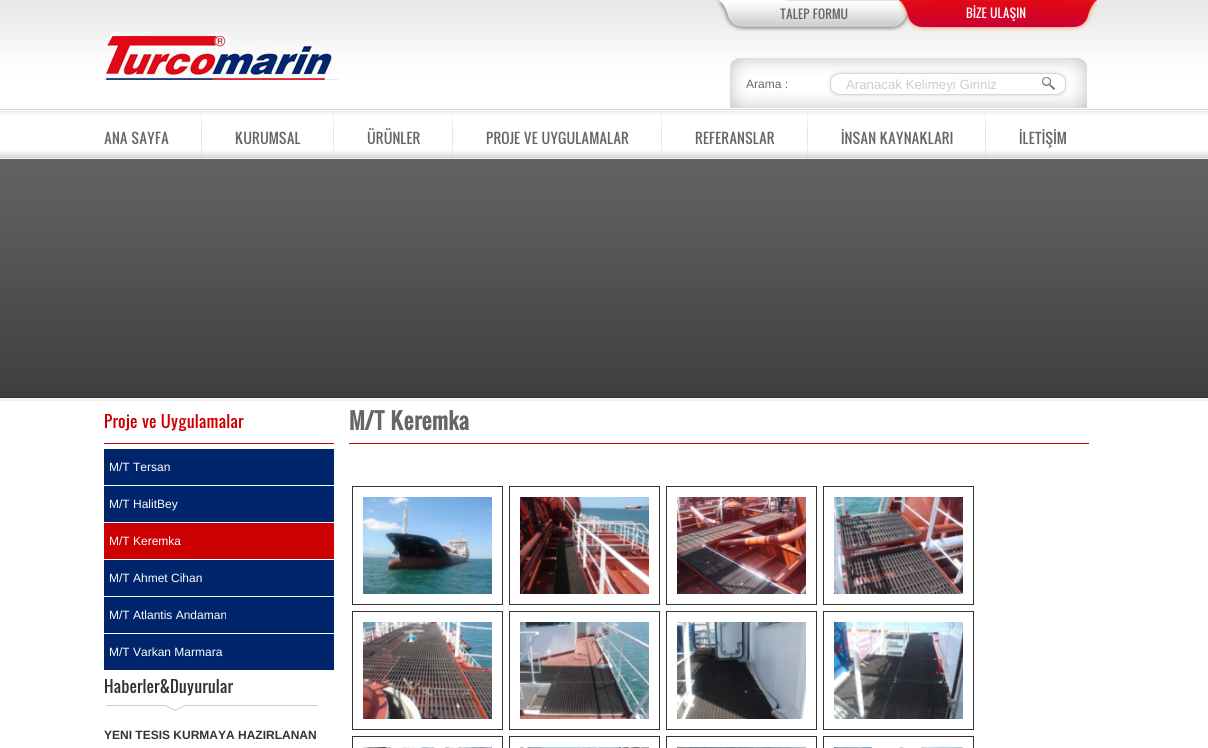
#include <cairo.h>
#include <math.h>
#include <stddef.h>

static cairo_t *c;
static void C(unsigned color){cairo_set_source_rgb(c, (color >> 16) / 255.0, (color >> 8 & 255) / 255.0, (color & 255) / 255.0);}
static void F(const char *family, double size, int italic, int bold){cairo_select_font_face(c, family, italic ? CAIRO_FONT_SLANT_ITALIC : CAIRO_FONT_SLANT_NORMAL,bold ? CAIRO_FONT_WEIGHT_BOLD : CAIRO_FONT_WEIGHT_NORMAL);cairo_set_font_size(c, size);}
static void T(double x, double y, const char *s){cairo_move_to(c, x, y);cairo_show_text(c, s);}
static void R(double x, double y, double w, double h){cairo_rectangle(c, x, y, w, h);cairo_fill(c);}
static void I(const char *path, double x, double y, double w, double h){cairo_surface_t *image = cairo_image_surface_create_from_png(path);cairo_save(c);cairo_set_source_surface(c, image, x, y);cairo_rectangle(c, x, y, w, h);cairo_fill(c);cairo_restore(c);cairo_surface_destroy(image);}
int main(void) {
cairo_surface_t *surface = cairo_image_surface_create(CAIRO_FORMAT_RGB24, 1208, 748);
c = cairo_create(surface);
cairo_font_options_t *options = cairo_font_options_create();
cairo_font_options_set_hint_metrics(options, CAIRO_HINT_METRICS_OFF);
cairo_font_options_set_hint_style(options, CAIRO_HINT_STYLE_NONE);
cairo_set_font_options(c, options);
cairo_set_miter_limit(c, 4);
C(0xffffff);
cairo_paint(c);
I("1.png",0,0,1208,159);
I("2.png",716,0,194,31);
F("Oswald",12,0,0);
C(0x666666);
T(780,19,"TALEP FORMU");
I("3.png",896,0,201,32);
C(0xffffff);
T(966,18,"BİZE ULAŞIN");
I("4.png",104,32,234,48);
I("5.png",730,58,357,50);
F("Liberation Sans",12,0,0);
C(0x666666);
T(746,88,"Arama :");
I("6.png",828,71,240,26);
F("Liberation Sans",13.25,0,0);
C(0xcccccc);
T(846,89,"Aranacak Kelimeyi Giriniz");
I("7.png",1042,77,13,13);
I("8.png",201,111,1,47);
F("Oswald",14,0,0);
C(0x666666);
T(104,144,"ANA SAYFA");
I("8.png",333,111,1,47);
T(235,144,"KURUMSAL");
I("8.png",452,111,1,47);
T(367,144,"ÜRÜNLER");
I("8.png",661,111,1,47);
T(486,144,"PROJE VE UYGULAMALAR");
I("8.png",807,111,1,47);
T(695,144,"REFERANSLAR");
I("8.png",985,111,1,47);
T(841,144,"İNSAN KAYNAKLARI");
T(1019,144,"İLETİŞİM");
I("9.png",0,159,1208,242);
C(0xcc0000);
R(104,443,230,1);
F("Oswald",16,0,0);
T(104,428,"Proje ve Uygulamalar");
C(0x00256c);
R(104,449,230,36);
F("Liberation Sans",12,0,0);
C(0xffffff);
T(109,471,"M/T Tersan");
C(0x00256c);
R(104,486,230,36);
C(0xffffff);
T(109,508,"M/T HalitBey");
C(0xcc0000);
R(104,523,230,36);
C(0xffffff);
T(109,545,"M/T Keremka");
C(0x00256c);
R(104,560,230,36);
C(0xffffff);
T(109,582,"M/T Ahmet Cihan");
C(0x00256c);
R(104,597,230,36);
C(0xffffff);
T(109,619,"M/T Atlantis Andaman");
C(0x00256c);
R(104,634,230,36);
C(0xffffff);
T(109,656,"M/T Varkan Marmara");
I("10.png",106,705,212,6);
F("Oswald",16,0,0);
C(0x333333);
T(104,693,"Haberler&Duyurular");
F("Liberation Sans",12,0,1);
T(104,739,"YENI TESIS KURMAYA HAZIRLANAN");
C(0xcc0000);
R(349,443,740,1);
F("Oswald",22,0,1);
C(0x666666);
T(349,430,"M/T Keremka");
cairo_rectangle(c,352.5,486.5,150,118);
C(0x333333);
cairo_set_line_width(c,1);
cairo_stroke(c);
I("11.png",363,497,129,97);
cairo_rectangle(c,509.5,486.5,150,118);
cairo_stroke(c);
I("12.png",520,497,129,97);
cairo_rectangle(c,666.5,486.5,150,118);
cairo_stroke(c);
I("13.png",677,497,129,97);
cairo_rectangle(c,823.5,486.5,150,118);
cairo_stroke(c);
I("14.png",834,497,129,97);
cairo_rectangle(c,352.5,611.5,150,118);
cairo_stroke(c);
I("15.png",363,622,129,97);
cairo_rectangle(c,509.5,611.5,150,118);
cairo_stroke(c);
I("16.png",520,622,129,97);
cairo_rectangle(c,666.5,611.5,150,118);
cairo_stroke(c);
I("17.png",677,622,129,97);
cairo_rectangle(c,823.5,611.5,150,118);
cairo_stroke(c);
I("18.png",834,622,129,97);
cairo_rectangle(c,352.5,736.5,150,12);
cairo_stroke(c);
I("19.png",363,747,129,1);
cairo_rectangle(c,509.5,736.5,150,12);
cairo_stroke(c);
I("20.png",520,747,129,1);
cairo_rectangle(c,666.5,736.5,150,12);
cairo_stroke(c);
I("21.png",677,747,129,1);
cairo_rectangle(c,823.5,736.5,150,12);
cairo_stroke(c);
I("22.png",834,747,129,1);
cairo_surface_write_to_png(surface, "o.png");
cairo_font_options_destroy(options);
cairo_destroy(c);
cairo_surface_destroy(surface);
return 0;
}
